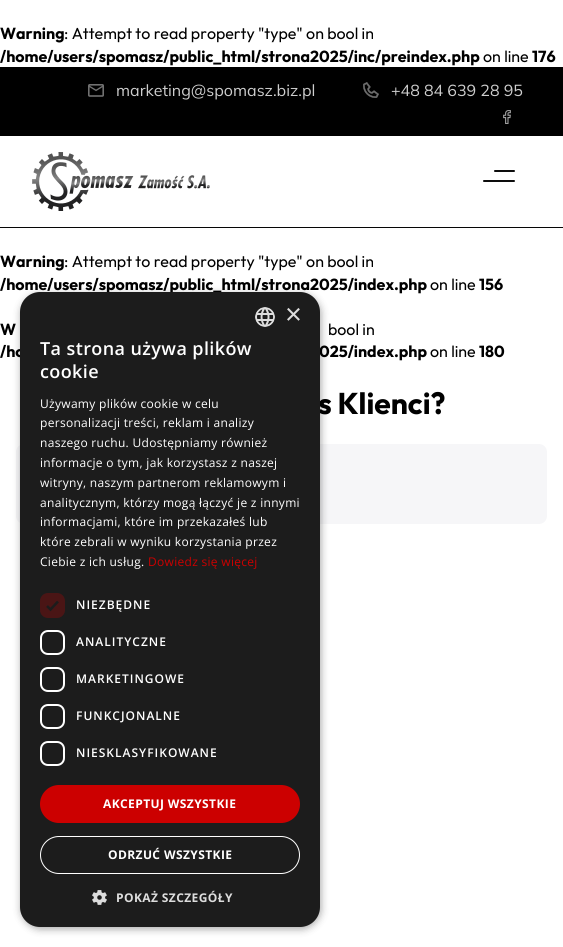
#include <cairo.h>
#include <math.h>
#include <stddef.h>

static cairo_t *c;
static void C(unsigned color){cairo_set_source_rgb(c, (color >> 16) / 255.0, (color >> 8 & 255) / 255.0, (color & 255) / 255.0);}
static void F(const char *family, double size, int italic, int bold){cairo_select_font_face(c, family, italic ? CAIRO_FONT_SLANT_ITALIC : CAIRO_FONT_SLANT_NORMAL,bold ? CAIRO_FONT_WEIGHT_BOLD : CAIRO_FONT_WEIGHT_NORMAL);cairo_set_font_size(c, size);}
static void T(double x, double y, const char *s){cairo_move_to(c, x, y);cairo_show_text(c, s);}
static void L(double x, double y, const char *s, double letter, double word){cairo_move_to(c, x, y);while (*s) {char ch[5] = {0};int n = 0;do ch[n++] = *s++; while ((*s & 0xC0) == 0x80);cairo_show_text(c, ch);cairo_rel_move_to(c, letter + word * (*ch == ' '), 0);}}
static void R(double x, double y, double w, double h){cairo_rectangle(c, x, y, w, h);cairo_fill(c);}
static void Q(double x, double y, double w, double h, double r){cairo_new_sub_path(c);cairo_arc(c, x + w - r, y + h - r, r, 0, M_PI / 2);cairo_arc(c, x + r, y + h - r, r, M_PI / 2, M_PI);cairo_arc(c, x + r, y + r, r, M_PI, 1.5 * M_PI);cairo_arc(c, x + w - r, y + r, r, 1.5 * M_PI, 2 * M_PI);cairo_close_path(c);}
static void S(double x, double y, double w, double h, double r, double blur, double alpha){cairo_push_group_with_content(c, CAIRO_CONTENT_ALPHA);cairo_set_operator(c, CAIRO_OPERATOR_SOURCE);for (int i = 15; i >= -15 && fmin(w, h) + blur * i / 3 > 0; i -= 2) {double e = blur * i / 6;cairo_set_source_rgba(c, 0, 0, 0, alpha * erfc((i - 1) / 8.5) / 2);Q(x - e, y - e, w + 2 * e, h + 2 * e, fmax(0, fmin(r + e + blur * .6, fmin(w, h) / 2 + e)));cairo_fill(c);}cairo_pattern_t *soft = cairo_pop_group(c);cairo_mask(c, soft);cairo_pattern_destroy(soft);}
static void I(const char *path, double x, double y, double w, double h){cairo_surface_t *image = cairo_image_surface_create_from_png(path);cairo_save(c);cairo_set_source_surface(c, image, x, y);cairo_rectangle(c, x, y, w, h);cairo_fill(c);cairo_restore(c);cairo_surface_destroy(image);}
int main(void) {
cairo_surface_t *surface = cairo_image_surface_create(CAIRO_FORMAT_RGB24, 563, 947);
c = cairo_create(surface);
cairo_font_options_t *options = cairo_font_options_create();
cairo_font_options_set_hint_metrics(options, CAIRO_HINT_METRICS_OFF);
cairo_font_options_set_hint_style(options, CAIRO_HINT_STYLE_NONE);
cairo_set_font_options(c, options);
cairo_set_miter_limit(c, 4);
C(0xffffff);
cairo_paint(c);
F("Outfit",16,0,1);
C(0x000000);
T(0,39,"Warning");
F("Outfit",16,0,0);
T(64,39,": Attempt to read property \"type\" on bool in");
F("Outfit",16,0,1);
T(0,62,"/home/users/spomasz/public_html/strona2025/inc/preindex.php");
F("Outfit",16,0,0);
T(483,62,"on line");
F("Outfit",16,0,1);
T(532,62,"176");
C(0x060606);
R(0,227,563,1);
C(0x000000);
R(0,67,563,69);
I("1.png",88,84,16,13);
F("Mulish ExtraLight",16,0,0);
C(0xcecece);
T(116,96,"marketing@spomasz.biz.pl");
I("2.png",363,82,16,16);
T(391,96,"+48 84 639 28 95");
I("3.png",503,110,8,14);
I("4.png",32,152,178,59);
C(0x0d0d0d);
Q(494,170,21,2,1);
cairo_fill(c);
Q(483,180,32,2,1);
cairo_fill(c);
F("Outfit",16,0,1);
C(0x000000);
T(0,267,"Warning");
F("Outfit",16,0,0);
T(64,267,": Attempt to read property \"type\" on bool in");
F("Outfit",16,0,1);
T(0,290,"/home/users/spomasz/public_html/strona2025/index.php");
F("Outfit",16,0,0);
T(430,290,"on line");
F("Outfit",16,0,1);
T(479,290,"156");
T(0,335,"W");
F("Outfit",16,0,0);
T(328,335,"bool in");
F("Outfit",16,0,1);
T(0,357,"/ho");
T(319,357,"025/index.php");
F("Outfit",16,0,0);
T(430,357,"on line");
F("Outfit",16,0,1);
T(479,357,"180");
C(0xf6f6f8);
Q(16,444,531,80,8);
cairo_fill(c);
C(0x000000);
S(21,294,300,635,20,4,.35);
F("Outfit",30,0,1);
C(0x000000);
T(318,414,"s Klienci?");
C(0x1c1c1c);
Q(20,292,300,635,20);
cairo_fill(c);
I("5.png",255,307,20,20);
F("Liberation Sans",29,0,0);
C(0xdddddd);
T(285,324,"×");
F("Open Sans SemiBold",18,0,0);
C(0xffffff);
L(40,355,"Ta strona używa plików",.4,0);
L(40,378,"cookie",.4,0);
F("Open Sans",12,0,0);
L(40,408,"Używamy plików cookie w celu",.3,0);
L(40,427,"personalizacji treści, reklam i analizy",.3,0);
L(40,447,"naszego ruchu. Udostępniamy również",.3,0);
L(40,467,"informacje o tym, jak korzystasz z naszej",.3,0);
L(40,487,"witryny, naszym partnerom reklamowym i",.3,0);
L(40,507,"analitycznym, którzy mogą łączyć je z innymi",.3,0);
L(40,526,"informacjami, które im przekazałeś lub",.3,0);
L(40,546,"które zebrali w wyniku korzystania przez",.3,0);
L(40,566,"Ciebie z ich usług.",.3,0);
C(0xcc0000);
L(148,566,"Dowiedz się więcej",.3,0);
C(0x4a1515);
Q(40,593,25,25,8);
cairo_fill(c);
cairo_new_path(c);
cairo_move_to(c,47,606);
cairo_line_to(c,50.5,609.5);
cairo_line_to(c,58,601.5);
C(0x1c1c1c);
cairo_set_line_width(c,2.6);
cairo_stroke(c);
F("Open Sans SemiBold",12,0,0);
C(0xffffff);
L(76,609,"NIEZBĘDNE",1,0);
Q(41,631,23,23,7);
cairo_set_line_width(c,2);
cairo_stroke(c);
L(76,646,"ANALITYCZNE",1,0);
Q(41,668,23,23,7);
cairo_stroke(c);
L(76,683,"MARKETINGOWE",1,0);
Q(41,705,23,23,7);
cairo_stroke(c);
L(76,720,"FUNKCJONALNE",1,0);
Q(41,742,23,23,7);
cairo_stroke(c);
L(76,757,"NIESKLASYFIKOWANE",1,0);
C(0xcc0000);
Q(40,785,260,38,19);
cairo_fill(c);
F("Open Sans",12,0,1);
C(0xffffff);
L(103,808,"AKCEPTUJ WSZYSTKIE",.4,0);
Q(40.5,836.5,259,37,18.5);
cairo_set_line_width(c,1);
cairo_stroke(c);
L(108,859,"ODRZUĆ WSZYSTKIE",.4,0);
I("6.png",92,890,15,15);
C(0xdddddd);
L(116,902,"POKAŻ SZCZEGÓŁY",.4,0);
cairo_surface_write_to_png(surface, "o.png");
cairo_font_options_destroy(options);
cairo_destroy(c);
cairo_surface_destroy(surface);
return 0;
}
